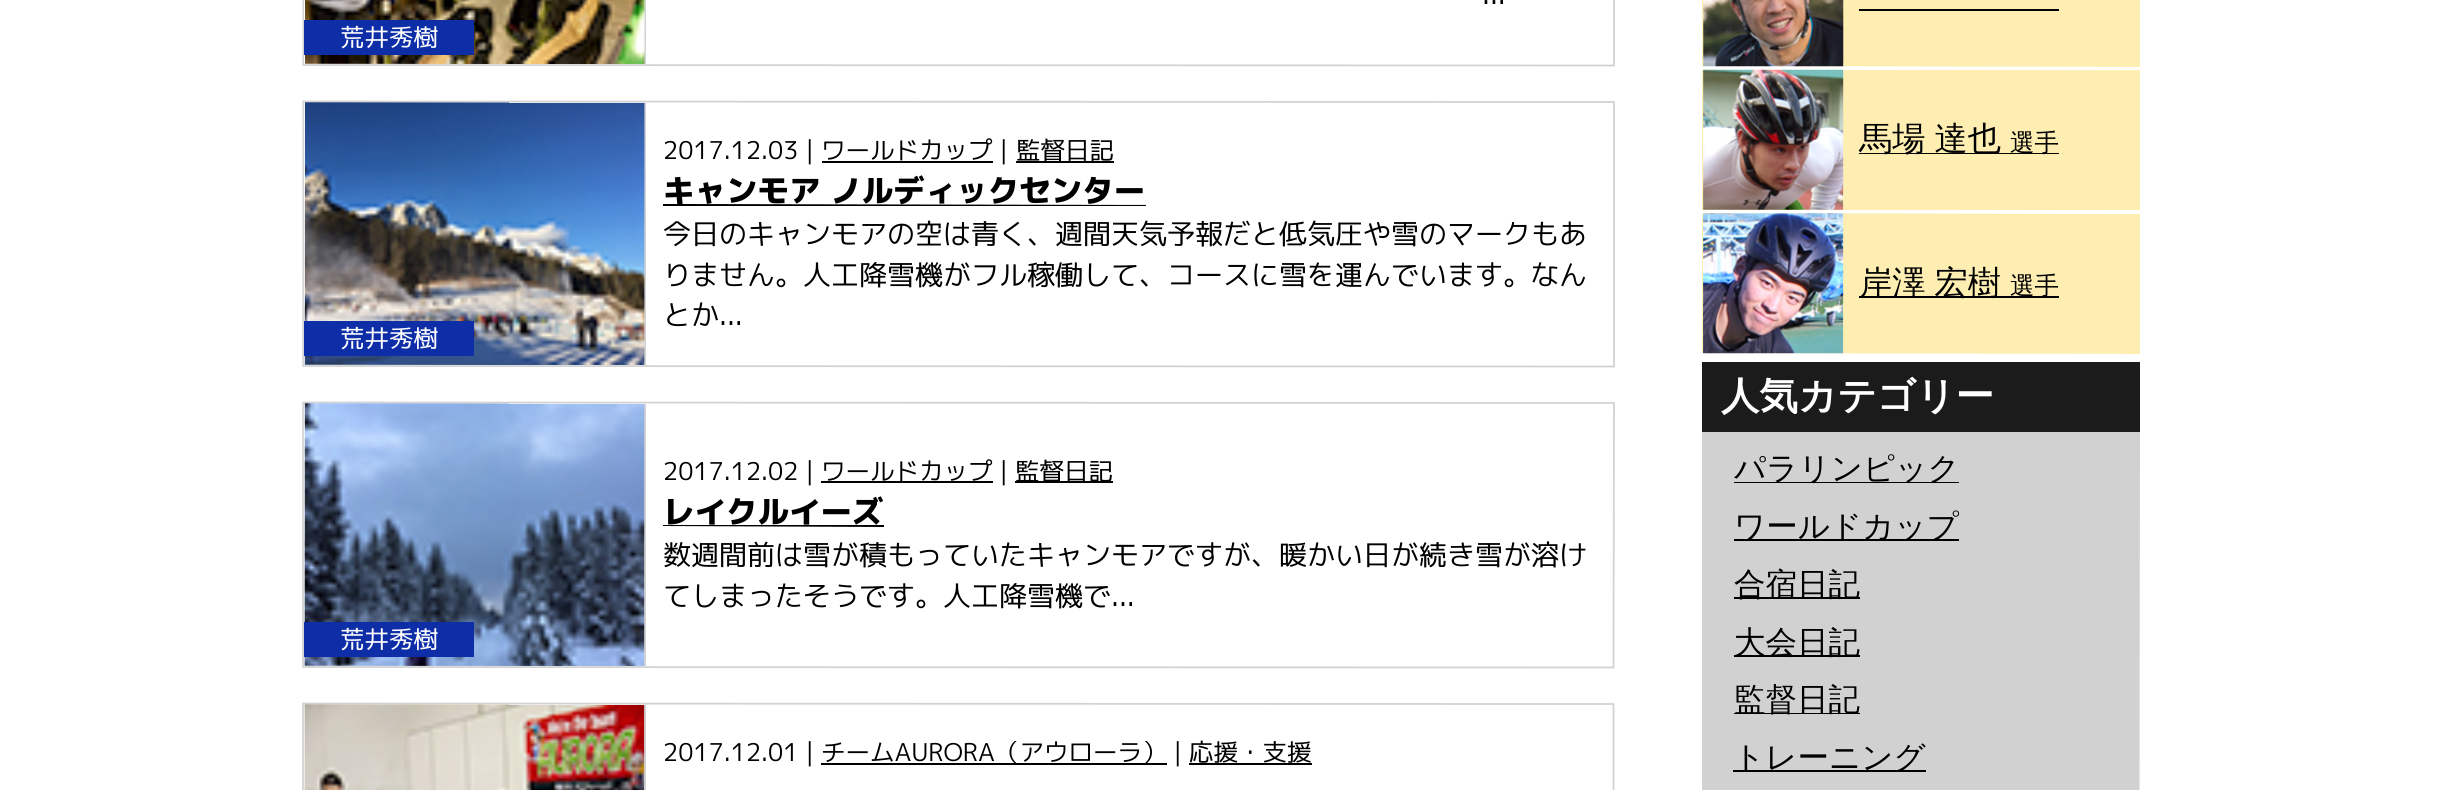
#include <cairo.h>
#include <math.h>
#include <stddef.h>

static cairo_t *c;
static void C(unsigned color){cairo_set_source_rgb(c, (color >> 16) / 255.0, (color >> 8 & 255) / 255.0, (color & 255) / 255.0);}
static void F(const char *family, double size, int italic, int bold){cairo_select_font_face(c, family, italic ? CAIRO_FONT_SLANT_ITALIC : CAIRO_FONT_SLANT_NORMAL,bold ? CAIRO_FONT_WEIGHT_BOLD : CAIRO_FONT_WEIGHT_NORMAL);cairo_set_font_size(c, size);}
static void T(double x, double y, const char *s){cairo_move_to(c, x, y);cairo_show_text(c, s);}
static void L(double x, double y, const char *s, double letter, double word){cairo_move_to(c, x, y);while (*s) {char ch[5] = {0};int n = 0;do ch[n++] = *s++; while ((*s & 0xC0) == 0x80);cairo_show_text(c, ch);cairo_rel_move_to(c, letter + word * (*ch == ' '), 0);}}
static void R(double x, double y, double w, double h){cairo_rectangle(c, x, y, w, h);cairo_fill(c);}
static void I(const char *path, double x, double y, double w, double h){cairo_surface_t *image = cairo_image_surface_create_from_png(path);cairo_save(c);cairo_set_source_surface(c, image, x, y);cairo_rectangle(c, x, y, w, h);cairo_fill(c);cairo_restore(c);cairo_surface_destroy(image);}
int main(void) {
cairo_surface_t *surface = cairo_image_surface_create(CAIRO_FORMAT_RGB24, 2440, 790);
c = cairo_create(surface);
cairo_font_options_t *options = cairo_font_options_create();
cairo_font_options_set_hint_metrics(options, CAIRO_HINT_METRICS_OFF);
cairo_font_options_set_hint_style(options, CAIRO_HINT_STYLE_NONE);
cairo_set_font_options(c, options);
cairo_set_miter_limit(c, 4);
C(0xffffff);
cairo_paint(c);
cairo_save(c);
cairo_new_path(c);
cairo_move_to(c,303,-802.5);
cairo_line_to(c,2140.5,-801.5);
cairo_line_to(c,2138.5,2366);
cairo_line_to(c,301,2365);
cairo_close_path(c);
cairo_clip(c);
cairo_new_path(c);
cairo_move_to(c,303.5,-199.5);
cairo_line_to(c,1614,-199);
cairo_line_to(c,1614,65.5);
cairo_line_to(c,303,65);
cairo_close_path(c);
C(0xd2d2d2);
cairo_set_line_width(c,1.8);
cairo_stroke(c);
cairo_restore(c);
F("M PLUS 1p",28,0,0);
C(0x000000);
T(1482,4,"...");
C(0xd2d2d2);
R(644,0,2,64);
I("1.png",305,0,340,64);
C(0x0e2ea8);
R(304,20,170,35);
F("M PLUS 1p",24.5,0,0);
C(0xffffff);
T(340,46,"荒井秀樹");
cairo_save(c);
cairo_new_path(c);
cairo_move_to(c,303,-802.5);
cairo_line_to(c,2140.5,-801.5);
cairo_line_to(c,2138.5,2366);
cairo_line_to(c,301,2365);
cairo_close_path(c);
cairo_clip(c);
cairo_new_path(c);
cairo_move_to(c,303,101.5);
cairo_line_to(c,1614,102);
cairo_line_to(c,1614,366.5);
cairo_line_to(c,303,366);
cairo_close_path(c);
C(0xd2d2d2);
cairo_set_line_width(c,1.8);
cairo_stroke(c);
cairo_restore(c);
C(0x000000);
T(663,159,"2017.12.03 | ワールドカップ |");
R(1016,161,98,2);
T(1016,159,"監督日記");
R(822,161,171,2);
cairo_new_path(c);
cairo_move_to(c,663,204);
cairo_line_to(c,1146,205);
cairo_line_to(c,1146,206);
cairo_line_to(c,663,206);
cairo_close_path(c);
cairo_fill(c);
F("M PLUS 1p ExtraBold",31.5,0,0);
T(663,202,"キャンモア ノルディックセンター");
F("M PLUS 1p",28,0,0);
T(663,244,"今日のキャンモアの空は青く、週間天気予報だと低気圧や雪のマークもあ");
T(663,285,"りません。人工降雪機がフル稼働して、コースに雪を運んでいます。なん");
T(663,325,"とか...");
C(0xd2d2d2);
R(644,103,2,262);
I("2.png",304,102,341,263);
C(0x0e2ea8);
R(304,321,170,35);
F("M PLUS 1p",24.5,0,0);
C(0xffffff);
T(340,347,"荒井秀樹");
cairo_save(c);
cairo_new_path(c);
cairo_move_to(c,303,-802.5);
cairo_line_to(c,2140.5,-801.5);
cairo_line_to(c,2138.5,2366);
cairo_line_to(c,301,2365);
cairo_close_path(c);
cairo_clip(c);
cairo_new_path(c);
cairo_move_to(c,303,402.5);
cairo_line_to(c,1614,403);
cairo_line_to(c,1613.5,667.5);
cairo_line_to(c,303,667);
cairo_close_path(c);
C(0xd2d2d2);
cairo_set_line_width(c,1.8);
cairo_stroke(c);
cairo_restore(c);
C(0x000000);
T(663,480,"2017.12.02 |");
R(821,481,172,2);
T(821,480,"ワールドカップ |");
R(1015,481,98,2);
T(1015,480,"監督日記");
F("M PLUS 1p ExtraBold",31.5,0,0);
T(663,523,"レイクルイーズ");
cairo_new_path(c);
cairo_move_to(c,663,525);
cairo_line_to(c,884,525);
cairo_line_to(c,884,527);
cairo_line_to(c,663,526);
cairo_close_path(c);
cairo_fill(c);
F("M PLUS 1p",28,0,0);
T(663,565,"数週間前は雪が積もっていたキャンモアですが、暖かい日が続き雪が溶け");
T(663,606,"てしまったそうです。人工降雪機で...");
C(0xd2d2d2);
R(644,404,2,262);
I("3.png",304,403,341,263);
C(0x0e2ea8);
R(304,622,170,35);
F("M PLUS 1p",24.5,0,0);
C(0xffffff);
T(340,648,"荒井秀樹");
cairo_new_path(c);
cairo_move_to(c,303,703.5);
cairo_line_to(c,1613.5,704);
cairo_line_to(c,1613.5,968.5);
cairo_line_to(c,303,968);
cairo_close_path(c);
C(0xd2d2d2);
cairo_set_line_width(c,1.8);
cairo_stroke(c);
R(644,705,2,85);
I("4.png",304,704,341,86);
C(0x000000);
T(663,761,"2017.12.01 |");
R(821,763,346,2);
T(821,761,"チームAURORA（アウローラ） | 応援・支援");
R(1189,763,123,2);
C(0xfeeeb2);
cairo_new_path(c);
cairo_move_to(c,1702,-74);
cairo_line_to(c,2140,-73);
cairo_line_to(c,2140,67);
cairo_line_to(c,1702,66);
cairo_close_path(c);
cairo_fill(c);
I("5.png",1703,0,141,67);
C(0x000000);
R(1859,9,200,2);
C(0xfeeeb2);
R(1702,70,438,140);
I("6.png",1703,69,141,141);
C(0x000000);
R(1859,153,200,1);
F("WenQuanYi Zen Hei Medium",33.25,0,0);
L(1859,150,"馬場 達也",0,-1);
F("WenQuanYi Zen Hei Medium",24.5,0,0);
T(2010,151,"選手");
C(0xfeeeb2);
cairo_new_path(c);
cairo_move_to(c,1702,213);
cairo_line_to(c,2140,214);
cairo_line_to(c,2140,354);
cairo_line_to(c,1702,353);
cairo_close_path(c);
cairo_fill(c);
I("7.png",1703,213,141,141);
C(0x000000);
R(1859,296,200,2);
F("WenQuanYi Zen Hei Medium",33.25,0,0);
L(1859,294,"岸澤 宏樹",0,-1);
F("WenQuanYi Zen Hei Medium",24.5,0,0);
T(2010,294,"選手");
C(0x1b1b1b);
R(1702,362,438,70);
F("WenQuanYi Zen Hei",38.5,0,1);
C(0xffffff);
T(1721,409,"人気カテゴリー");
C(0xd1d1d1);
cairo_new_path(c);
cairo_move_to(c,1702,432);
cairo_line_to(c,2140,432);
cairo_line_to(c,2139,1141);
cairo_line_to(c,1702,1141);
cairo_close_path(c);
cairo_fill(c);
C(0x000000);
R(1734,482,225,1);
F("WenQuanYi Zen Hei Medium",31.5,0,0);
T(1734,479,"パラリンピック");
R(1734,539,225,2);
T(1734,537,"ワールドカップ");
R(1734,597,126,2);
T(1734,595,"合宿日記");
R(1734,655,126,2);
T(1734,653,"大会日記");
R(1734,713,126,1);
T(1734,710,"監督日記");
R(1733,770,193,2);
T(1733,768,"トレーニング");
cairo_surface_write_to_png(surface, "o.png");
cairo_font_options_destroy(options);
cairo_destroy(c);
cairo_surface_destroy(surface);
return 0;
}
